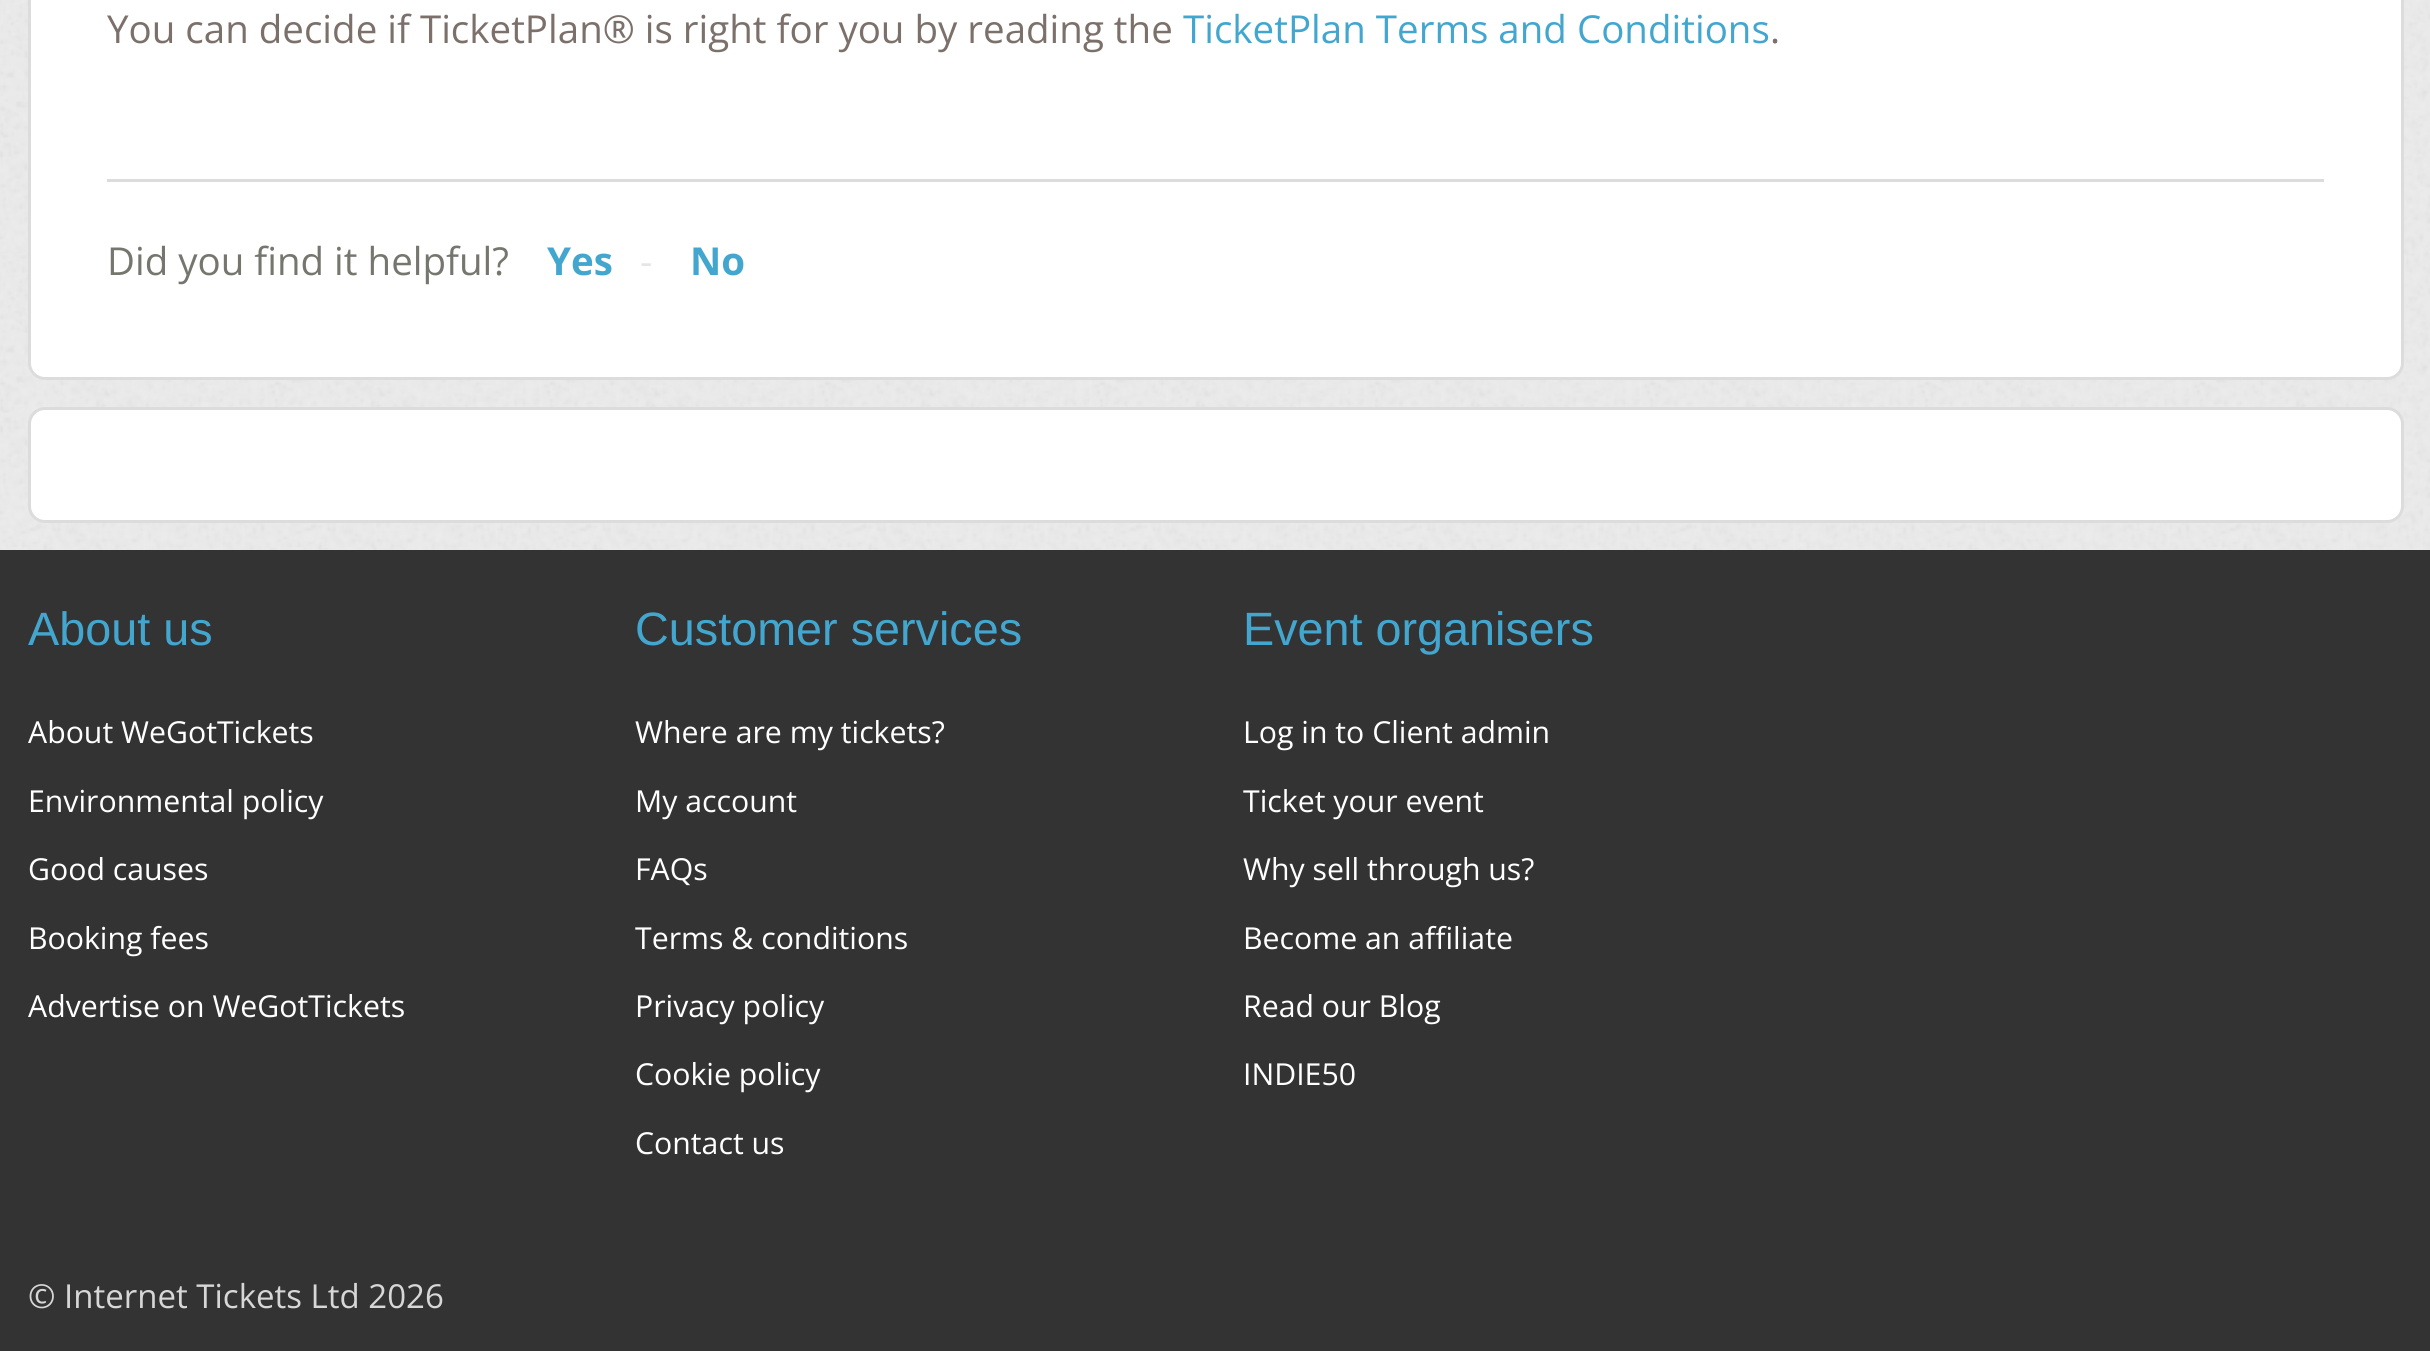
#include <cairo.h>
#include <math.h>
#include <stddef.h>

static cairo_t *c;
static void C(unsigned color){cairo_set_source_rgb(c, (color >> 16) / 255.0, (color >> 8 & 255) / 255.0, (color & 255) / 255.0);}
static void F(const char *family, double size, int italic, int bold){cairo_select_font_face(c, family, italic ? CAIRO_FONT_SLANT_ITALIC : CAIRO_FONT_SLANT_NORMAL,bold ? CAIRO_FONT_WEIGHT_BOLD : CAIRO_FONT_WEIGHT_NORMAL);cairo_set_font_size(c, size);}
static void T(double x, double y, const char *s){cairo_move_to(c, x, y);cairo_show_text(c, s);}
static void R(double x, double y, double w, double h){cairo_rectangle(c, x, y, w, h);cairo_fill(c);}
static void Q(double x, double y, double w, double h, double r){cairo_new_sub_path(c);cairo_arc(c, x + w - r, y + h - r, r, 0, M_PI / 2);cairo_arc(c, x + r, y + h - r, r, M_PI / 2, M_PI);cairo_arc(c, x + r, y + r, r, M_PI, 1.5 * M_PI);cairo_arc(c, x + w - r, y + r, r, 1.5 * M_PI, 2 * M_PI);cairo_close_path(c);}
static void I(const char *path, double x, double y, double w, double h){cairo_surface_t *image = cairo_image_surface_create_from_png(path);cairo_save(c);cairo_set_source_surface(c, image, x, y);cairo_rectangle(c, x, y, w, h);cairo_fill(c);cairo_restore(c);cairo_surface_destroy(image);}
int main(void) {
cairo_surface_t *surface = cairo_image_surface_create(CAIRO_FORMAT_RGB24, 2430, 1351);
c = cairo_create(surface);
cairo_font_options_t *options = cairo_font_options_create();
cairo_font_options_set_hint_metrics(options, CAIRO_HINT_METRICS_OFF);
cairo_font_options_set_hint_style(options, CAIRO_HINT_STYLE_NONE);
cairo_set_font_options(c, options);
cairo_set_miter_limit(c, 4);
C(0xebebeb);
cairo_paint(c);
I("1.png",0,0,2430,550);
C(0xffffff);
Q(29.5,-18.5,2373,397,15.5);
cairo_fill_preserve(c);
C(0xdcdcdc);
cairo_set_line_width(c,3);
cairo_stroke(c);
F("Open Sans",38.5,0,0);
C(0x7c706b);
T(107,43,"You can decide if TicketPlan® is right for you by reading the");
C(0x43a6cf);
T(1183,43,"TicketPlan Terms and Conditions");
C(0x7c706b);
T(1770,43,".");
C(0xdcdcdc);
R(107,179,2217,3);
C(0x76766f);
T(107,275,"Did you find it helpful?");
F("Open Sans",38.5,0,1);
C(0x43a6cf);
T(547,275,"Yes");
F("Open Sans",38.5,0,0);
C(0xe5e5e5);
T(640,275,"-");
F("Open Sans",38.5,0,1);
C(0x43a6cf);
T(690,275,"No");
C(0xffffff);
Q(29.5,408.5,2373,113,15.5);
cairo_fill_preserve(c);
C(0xdcdcdc);
cairo_stroke(c);
C(0x333333);
R(0,550,2430,801);
F("Liberation Sans",46.75,0,0);
C(0x43a6cf);
T(28,645,"About us");
F("Open Sans",30.25,0,0);
C(0xffffff);
T(28,743,"About WeGotTickets");
T(28,812,"Environmental policy");
T(28,880,"Good causes");
T(28,949,"Booking fees");
T(28,1017,"Advertise on WeGotTickets");
F("Liberation Sans",46.75,0,0);
C(0x43a6cf);
T(635,645,"Customer services");
F("Open Sans",30.25,0,0);
C(0xffffff);
T(635,743,"Where are my tickets?");
T(635,812,"My account");
T(635,880,"FAQs");
T(635,949,"Terms & conditions");
T(635,1017,"Privacy policy");
T(635,1085,"Cookie policy");
T(635,1154,"Contact us");
F("Liberation Sans",46.75,0,0);
C(0x43a6cf);
T(1243,645,"Event organisers");
F("Open Sans",30.25,0,0);
C(0xffffff);
T(1243,743,"Log in to Client admin");
T(1243,812,"Ticket your event");
T(1243,880,"Why sell through us?");
T(1243,949,"Become an affiliate");
T(1243,1017,"Read our Blog");
T(1243,1085,"INDIE50");
F("Open Sans",33,0,0);
C(0xd7d7d7);
T(28,1308,"© Internet Tickets Ltd 2026");
cairo_surface_write_to_png(surface, "o.png");
cairo_font_options_destroy(options);
cairo_destroy(c);
cairo_surface_destroy(surface);
return 0;
}
